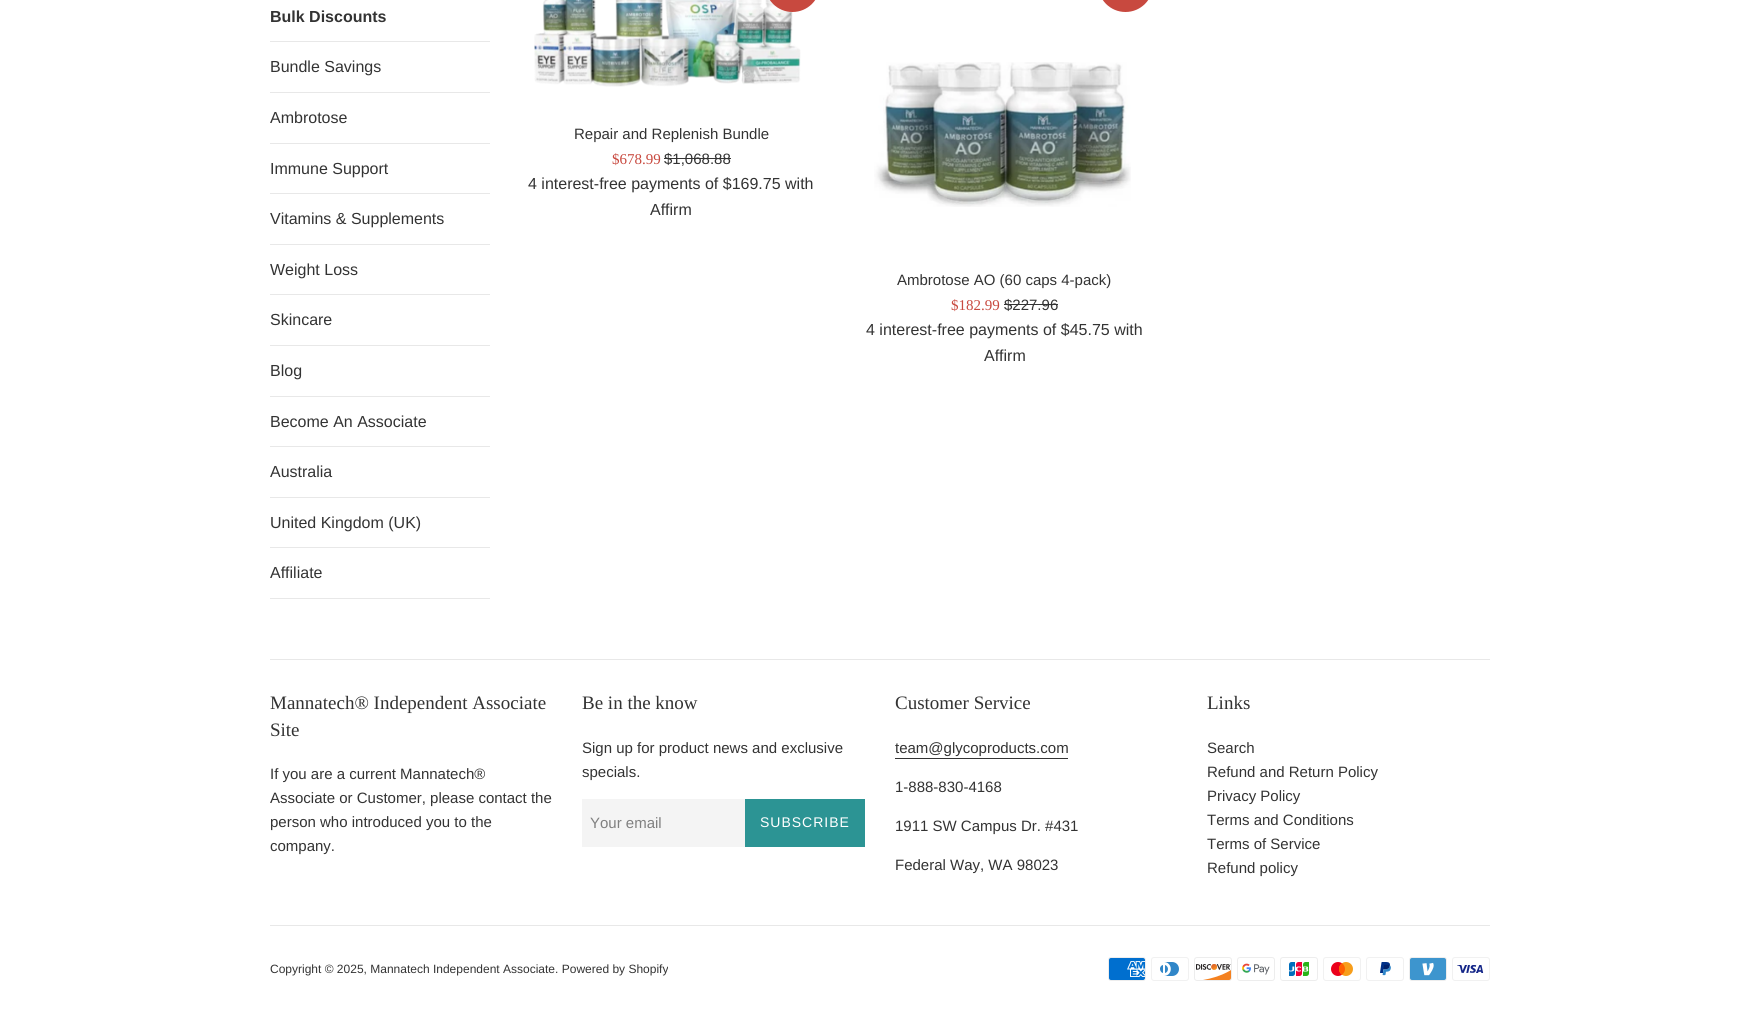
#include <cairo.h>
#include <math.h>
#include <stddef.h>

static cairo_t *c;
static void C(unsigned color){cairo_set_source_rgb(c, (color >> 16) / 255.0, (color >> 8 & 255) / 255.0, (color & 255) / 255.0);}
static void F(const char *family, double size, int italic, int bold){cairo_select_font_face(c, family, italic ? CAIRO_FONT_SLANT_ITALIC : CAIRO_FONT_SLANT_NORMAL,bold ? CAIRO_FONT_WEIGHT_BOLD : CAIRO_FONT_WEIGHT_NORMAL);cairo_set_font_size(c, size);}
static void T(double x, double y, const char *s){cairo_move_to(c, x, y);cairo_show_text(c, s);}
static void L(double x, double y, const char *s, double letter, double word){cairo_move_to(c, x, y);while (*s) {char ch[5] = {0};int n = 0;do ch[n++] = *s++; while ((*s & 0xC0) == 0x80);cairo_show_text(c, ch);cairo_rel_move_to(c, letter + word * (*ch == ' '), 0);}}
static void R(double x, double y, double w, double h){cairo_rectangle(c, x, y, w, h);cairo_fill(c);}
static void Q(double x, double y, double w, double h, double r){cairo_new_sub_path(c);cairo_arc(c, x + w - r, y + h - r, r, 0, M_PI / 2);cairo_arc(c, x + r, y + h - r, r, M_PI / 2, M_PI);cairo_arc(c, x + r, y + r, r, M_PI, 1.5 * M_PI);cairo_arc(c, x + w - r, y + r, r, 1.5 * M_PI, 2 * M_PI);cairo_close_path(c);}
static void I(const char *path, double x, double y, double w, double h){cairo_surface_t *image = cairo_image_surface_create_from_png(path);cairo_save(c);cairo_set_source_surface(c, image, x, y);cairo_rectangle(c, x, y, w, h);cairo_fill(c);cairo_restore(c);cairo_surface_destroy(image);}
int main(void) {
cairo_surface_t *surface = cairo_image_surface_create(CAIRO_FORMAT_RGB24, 1759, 1011);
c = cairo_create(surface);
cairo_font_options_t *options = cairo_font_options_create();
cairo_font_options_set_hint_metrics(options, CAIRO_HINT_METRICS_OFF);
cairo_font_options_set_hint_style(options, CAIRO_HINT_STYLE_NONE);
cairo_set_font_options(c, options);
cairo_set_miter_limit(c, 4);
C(0xffffff);
cairo_paint(c);
C(0xe8e8e8);
R(270,41,220,1);
F("Liberation Sans",16,0,1);
C(0x333333);
T(270,22,"Bulk Discounts");
C(0xe8e8e8);
R(270,92,220,1);
F("Liberation Sans",16,0,0);
C(0x333333);
T(270,72,"Bundle Savings");
C(0xe8e8e8);
R(270,143,220,1);
C(0x333333);
T(270,123,"Ambrotose");
C(0xe8e8e8);
R(270,193,220,1);
C(0x333333);
T(270,174,"Immune Support");
C(0xe8e8e8);
R(270,244,220,1);
C(0x333333);
T(270,224,"Vitamins & Supplements");
C(0xe8e8e8);
R(270,294,220,1);
C(0x333333);
T(270,275,"Weight Loss");
C(0xe8e8e8);
R(270,345,220,1);
C(0x333333);
T(270,325,"Skincare");
C(0xe8e8e8);
R(270,396,220,1);
C(0x333333);
T(270,376,"Blog");
C(0xe8e8e8);
R(270,446,220,1);
C(0x333333);
T(270,427,"Become An Associate");
C(0xe8e8e8);
R(270,497,220,1);
C(0x333333);
T(270,477,"Australia");
C(0xe8e8e8);
R(270,547,220,1);
C(0x333333);
T(270,528,"United Kingdom (UK)");
C(0xe8e8e8);
R(270,598,220,1);
C(0x333333);
T(270,578,"Affiliate");
I("1.png",534,0,267,87);
F("Liberation Sans",15,0,0);
T(574,139,"Repair and Replenish Bundle");
C(0xc8493f);
Q(765,-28,55,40,27.5);
cairo_fill(c);
F("Liberation Serif",15,0,0);
T(612,164,"$678.99");
F("Liberation Sans",15,0,0);
C(0x333333);
T(664,164,"$1,068.88");
R(664,158,67,1);
F("Liberation Sans",16,0,0);
T(528,189,"4 interest-free payments of $169.75 with");
T(650,215,"Affirm");
I("2.png",874,62,257,145);
F("Liberation Sans",15,0,0);
T(897,285,"Ambrotose AO (60 caps 4-pack)");
C(0xc8493f);
Q(1098,-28,55,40,27.5);
cairo_fill(c);
F("Liberation Serif",15,0,0);
T(951,310,"$182.99");
F("Liberation Sans",15,0,0);
C(0x333333);
T(1004,310,"$227.96");
R(1004,304,54,1);
F("Liberation Sans",16,0,0);
T(866,335,"4 interest-free payments of $45.75 with");
T(984,361,"Affirm");
C(0xe8e8e8);
R(270,659,1220,1);
F("Liberation Serif",19,0,0);
C(0x333333);
T(270,709,"Mannatech® Independent Associate");
T(270,736,"Site");
F("Liberation Sans",15,0,0);
T(270,779,"If you are a current Mannatech®");
T(270,803,"Associate or Customer, please contact the");
T(270,827,"person who introduced you to the");
T(270,851,"company.");
F("Liberation Serif",19,0,0);
T(582,709,"Be in the know");
F("Liberation Sans",15,0,0);
T(582,753,"Sign up for product news and exclusive");
T(582,777,"specials.");
C(0xf4f4f4);
R(582,799,163,48);
C(0x808080);
T(590,828,"Your email");
C(0x2c9494);
R(745,799,120,48);
F("Liberation Sans",14,0,0);
C(0xffffff);
L(760,827,"SUBSCRIBE",1,0);
F("Liberation Serif",19,0,0);
C(0x333333);
T(895,709,"Customer Service");
F("Liberation Sans",15,0,0);
T(895,753,"team@glycoproducts.com");
R(895,758,173,1);
T(895,792,"1-888-830-4168");
T(895,831,"1911 SW Campus Dr. #431");
T(895,870,"Federal Way, WA 98023");
F("Liberation Serif",19,0,0);
T(1207,709,"Links");
F("Liberation Sans",15,0,0);
T(1207,753,"Search");
T(1207,777,"Refund and Return Policy");
T(1207,801,"Privacy Policy");
T(1207,825,"Terms and Conditions");
T(1207,849,"Terms of Service");
T(1207,873,"Refund policy");
C(0xe8e8e8);
R(270,925,1220,1);
F("Liberation Sans",12,0,0);
C(0x333333);
T(270,973,"Copyright © 2025, Mannatech Independent Associate. Powered by Shopify");
I("3.png",1108,957,38,24);
I("4.png",1151,957,38,24);
I("5.png",1194,957,38,24);
I("6.png",1237,957,38,24);
I("7.png",1280,957,38,24);
I("8.png",1323,957,38,24);
I("9.png",1366,957,38,24);
I("10.png",1409,957,38,24);
I("11.png",1452,957,38,24);
cairo_surface_write_to_png(surface, "o.png");
cairo_font_options_destroy(options);
cairo_destroy(c);
cairo_surface_destroy(surface);
return 0;
}
